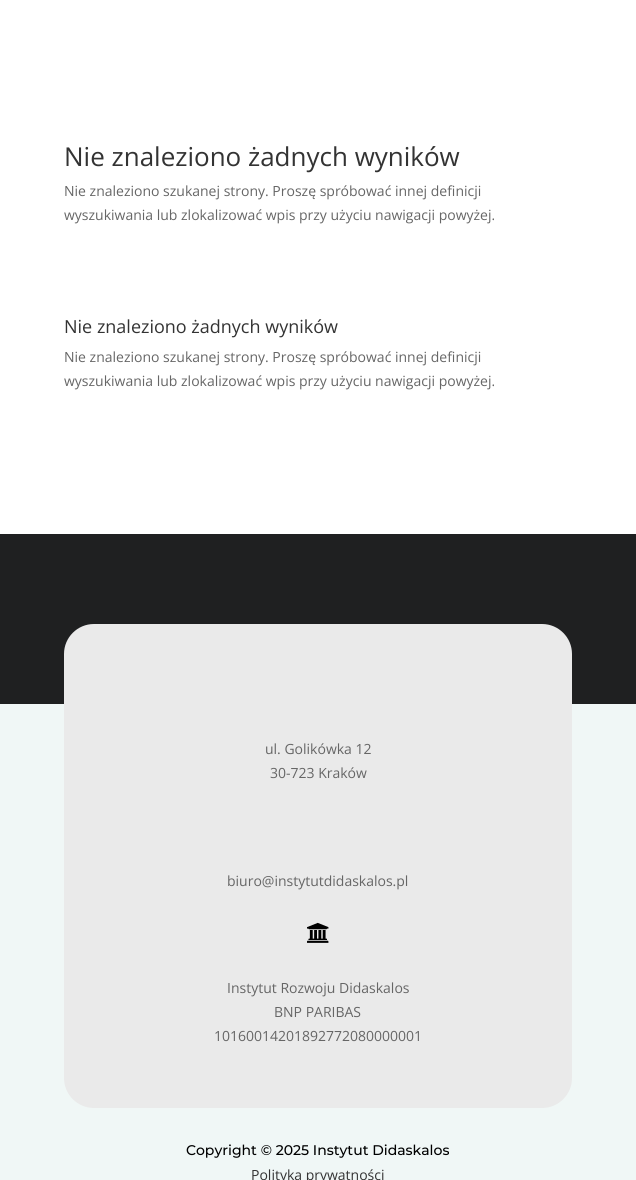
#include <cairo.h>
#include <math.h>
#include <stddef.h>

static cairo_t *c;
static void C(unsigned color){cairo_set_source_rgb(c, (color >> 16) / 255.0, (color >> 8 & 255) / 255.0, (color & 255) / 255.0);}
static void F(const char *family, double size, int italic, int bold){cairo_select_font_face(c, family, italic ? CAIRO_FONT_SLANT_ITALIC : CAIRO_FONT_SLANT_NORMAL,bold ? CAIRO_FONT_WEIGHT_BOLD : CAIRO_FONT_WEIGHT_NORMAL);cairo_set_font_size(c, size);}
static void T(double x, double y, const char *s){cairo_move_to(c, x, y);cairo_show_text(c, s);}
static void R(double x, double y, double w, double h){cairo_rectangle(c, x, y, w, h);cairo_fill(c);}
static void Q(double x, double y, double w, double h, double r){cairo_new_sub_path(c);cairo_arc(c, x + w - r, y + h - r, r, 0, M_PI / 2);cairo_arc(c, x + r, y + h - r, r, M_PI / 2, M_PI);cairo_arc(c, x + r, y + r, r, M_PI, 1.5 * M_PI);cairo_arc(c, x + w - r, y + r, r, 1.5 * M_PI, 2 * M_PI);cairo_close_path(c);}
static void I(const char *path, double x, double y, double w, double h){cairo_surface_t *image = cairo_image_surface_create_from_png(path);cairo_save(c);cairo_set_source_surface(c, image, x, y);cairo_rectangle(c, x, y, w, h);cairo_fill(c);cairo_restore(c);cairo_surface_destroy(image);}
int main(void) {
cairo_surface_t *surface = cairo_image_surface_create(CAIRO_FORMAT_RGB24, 636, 1180);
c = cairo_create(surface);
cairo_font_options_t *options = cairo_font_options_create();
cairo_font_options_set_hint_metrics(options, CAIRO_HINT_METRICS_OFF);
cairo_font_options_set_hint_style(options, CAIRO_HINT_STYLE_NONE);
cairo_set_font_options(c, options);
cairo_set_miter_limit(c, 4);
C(0xffffff);
cairo_paint(c);
F("Open Sans",26,0,0);
C(0x333333);
T(64,166,"Nie znaleziono żadnych wyników");
F("Open Sans",14,0,0);
C(0x666666);
T(64,196,"Nie znaleziono szukanej strony. Proszę spróbować innej definicji");
T(64,220,"wyszukiwania lub zlokalizować wpis przy użyciu nawigacji powyżej.");
F("Open Sans",18,0,0);
C(0x333333);
T(64,333,"Nie znaleziono żadnych wyników");
F("Open Sans",14,0,0);
C(0x666666);
T(64,362,"Nie znaleziono szukanej strony. Proszę spróbować innej definicji");
T(64,386,"wyszukiwania lub zlokalizować wpis przy użyciu nawigacji powyżej.");
C(0x1f2021);
R(0,534,636,170);
C(0xf0f7f6);
R(0,704,636,476);
C(0xeaeaea);
Q(64,624,508,484,30);
cairo_fill(c);
C(0x666666);
T(265,754,"ul. Golikówka 12");
T(270,778,"30-723 Kraków");
T(227,886,"biuro@instytutdidaskalos.pl");
I("1.png",307,922,22,21);
T(227,993,"Instytut Rozwoju Didaskalos");
T(274,1017,"BNP PARIBAS");
T(214,1041,"10160014201892772080000001");
F("Montserrat Medium",14,0,0);
C(0x000000);
T(186,1155,"Copyright © 2025 Instytut Didaskalos");
F("Open Sans",14,0,0);
C(0x333333);
T(251,1180,"Polityka prywatności");
cairo_surface_write_to_png(surface, "o.png");
cairo_font_options_destroy(options);
cairo_destroy(c);
cairo_surface_destroy(surface);
return 0;
}
